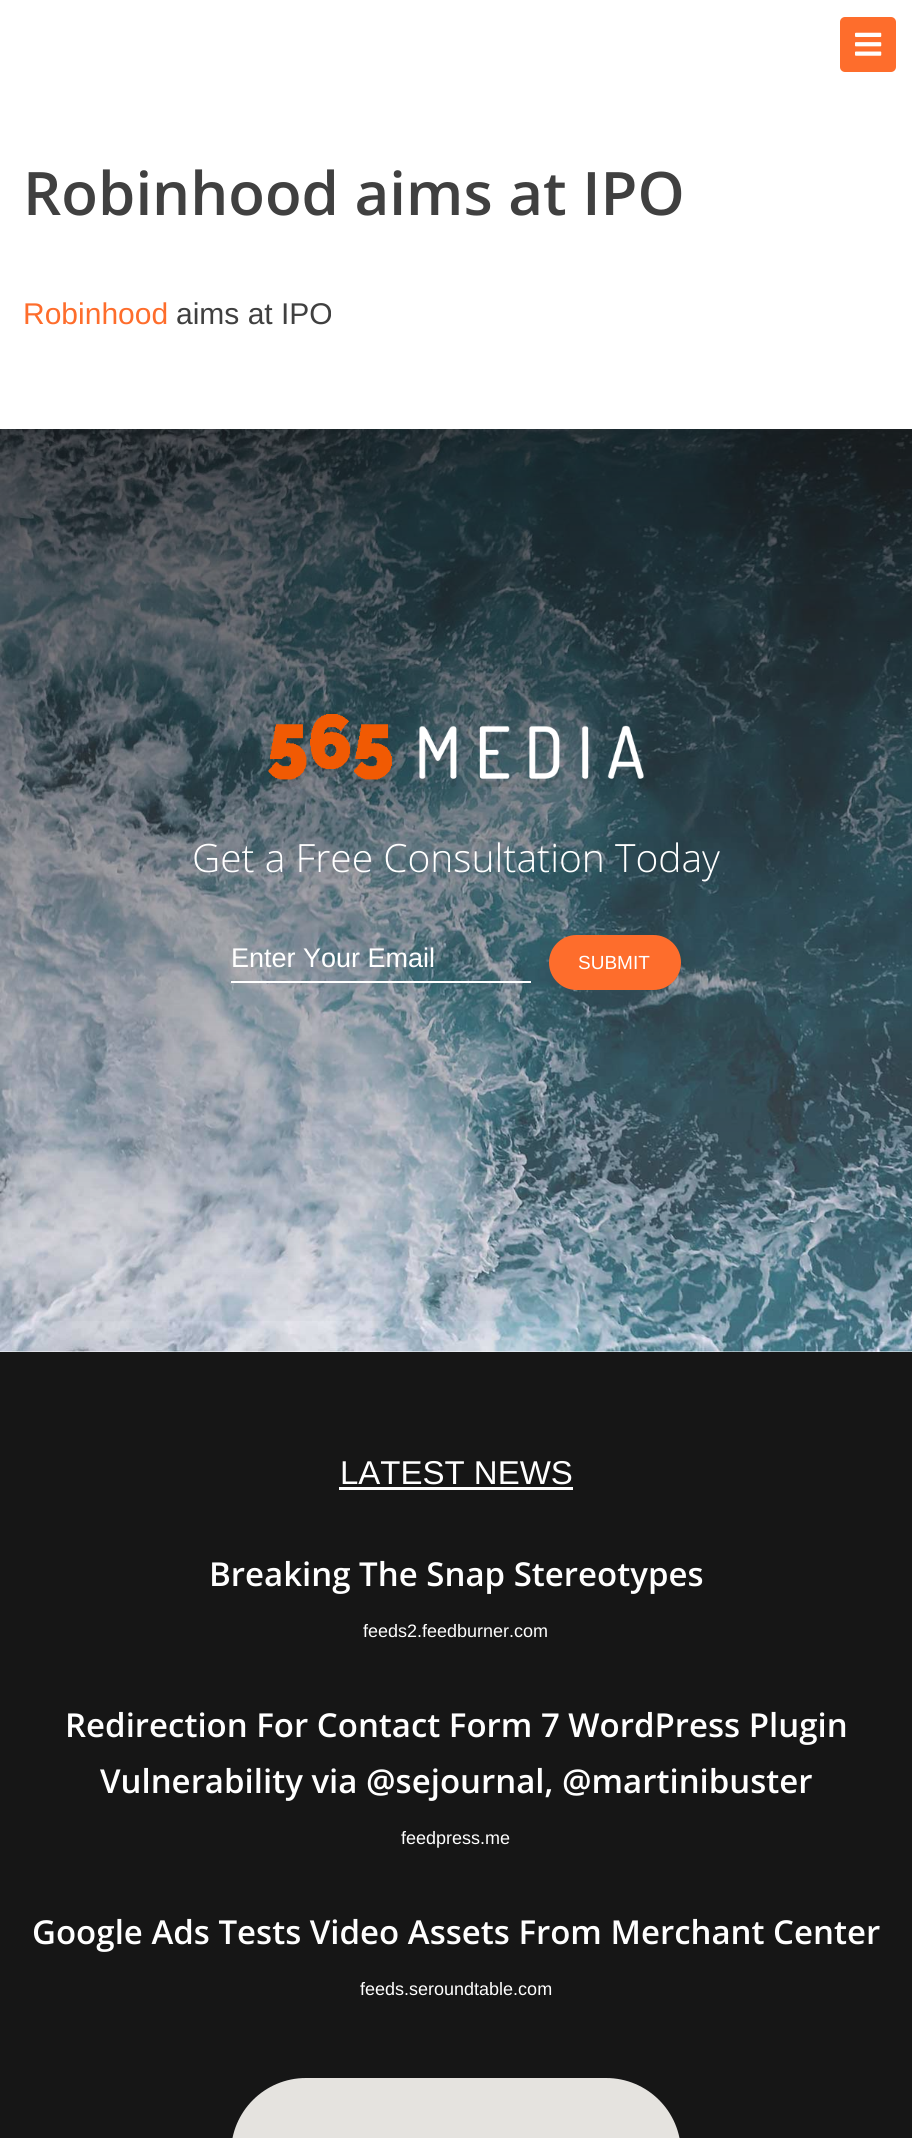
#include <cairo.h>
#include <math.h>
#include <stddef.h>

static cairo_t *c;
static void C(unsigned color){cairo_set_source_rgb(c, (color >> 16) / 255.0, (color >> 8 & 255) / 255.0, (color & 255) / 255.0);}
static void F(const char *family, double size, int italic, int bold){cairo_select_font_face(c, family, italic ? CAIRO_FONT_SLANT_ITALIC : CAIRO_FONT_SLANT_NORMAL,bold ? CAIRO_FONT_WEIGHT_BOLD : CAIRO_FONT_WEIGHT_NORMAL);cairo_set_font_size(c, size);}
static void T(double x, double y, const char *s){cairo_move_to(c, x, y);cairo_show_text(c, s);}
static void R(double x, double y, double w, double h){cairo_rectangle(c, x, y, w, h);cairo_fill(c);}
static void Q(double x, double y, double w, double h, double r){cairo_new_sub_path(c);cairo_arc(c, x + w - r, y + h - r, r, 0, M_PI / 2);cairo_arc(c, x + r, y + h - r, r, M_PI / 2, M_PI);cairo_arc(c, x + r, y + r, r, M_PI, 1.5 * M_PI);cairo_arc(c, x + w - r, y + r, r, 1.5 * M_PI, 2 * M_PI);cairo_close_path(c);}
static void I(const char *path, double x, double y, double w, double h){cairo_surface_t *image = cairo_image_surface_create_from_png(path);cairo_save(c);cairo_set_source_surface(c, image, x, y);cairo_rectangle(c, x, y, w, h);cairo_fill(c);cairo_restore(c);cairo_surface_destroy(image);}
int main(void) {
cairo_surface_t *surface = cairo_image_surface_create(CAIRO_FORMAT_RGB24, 912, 2138);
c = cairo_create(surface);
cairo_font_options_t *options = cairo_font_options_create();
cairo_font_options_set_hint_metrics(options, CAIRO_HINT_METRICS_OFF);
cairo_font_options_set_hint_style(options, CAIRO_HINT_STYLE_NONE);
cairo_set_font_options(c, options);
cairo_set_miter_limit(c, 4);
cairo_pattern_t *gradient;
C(0xffffff);
cairo_paint(c);
C(0xfe6d2c);
Q(840,17,56,55,5);
cairo_fill(c);
I("1.png",855,32,27,24);
F("Open Sans SemiBold",60,0,0);
C(0x404040);
T(23,215,"Robinhood aims at IPO");
F("Liberation Sans",30,0,0);
C(0xfe6d2c);
T(23,324,"Robinhood");
C(0x404040);
T(176,324,"aims at IPO");
I("2.png",0,429,912,923);
gradient = cairo_pattern_create_linear(456,429,456,1352);
cairo_pattern_add_color_stop_rgba(gradient,0,0,0,0,.65);
cairo_pattern_add_color_stop_rgba(gradient,1,0,0,0,0);
cairo_set_source(c,gradient);
cairo_pattern_destroy(gradient);
R(0,429,912,892);
I("3.png",268,714,376,74);
F("Open Sans Light",39,0,0);
C(0xffffff);
T(192,872,"Get a Free Consultation Today");
F("Liberation Sans",27,0,0);
T(231,967,"Enter Your Email");
R(231,981,300,2);
C(0xfe6d2c);
Q(549,935,132,55,27.5);
cairo_fill(c);
F("Liberation Sans",19,0,0);
C(0xffffff);
T(578,969,"SUBMIT");
C(0x161616);
R(0,1352,912,786);
F("Liberation Sans",33,0,0);
C(0xffffff);
T(340,1484,"LATEST NEWS");
R(339,1487,234,3);
F("Open Sans SemiBold",33,0,0);
T(209,1586,"Breaking The Snap Stereotypes");
F("Liberation Sans",18,0,0);
T(363,1637,"feeds2.feedburner.com");
F("Open Sans SemiBold",33,0,0);
T(65,1737,"Redirection For Contact Form 7 WordPress Plugin");
T(100,1793,"Vulnerability via @sejournal, @martinibuster");
F("Liberation Sans",18,0,0);
T(401,1844,"feedpress.me");
F("Open Sans SemiBold",33,0,0);
T(32,1944,"Google Ads Tests Video Assets From Merchant Center");
F("Liberation Sans",18,0,0);
T(360,1995,"feeds.seroundtable.com");
C(0xe5e3df);
Q(231,2078,450,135,75);
cairo_fill(c);
cairo_surface_write_to_png(surface, "o.png");
cairo_font_options_destroy(options);
cairo_destroy(c);
cairo_surface_destroy(surface);
return 0;
}
